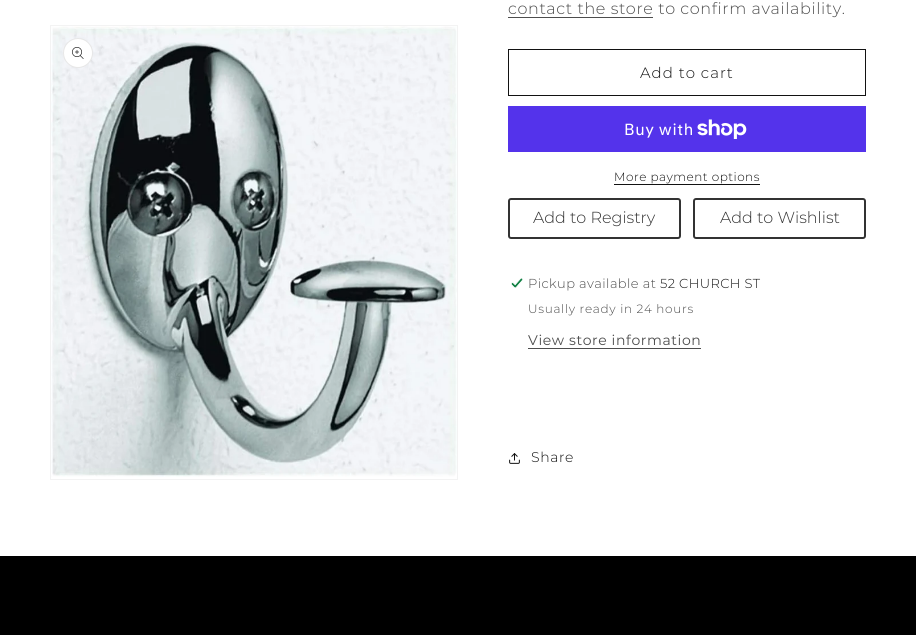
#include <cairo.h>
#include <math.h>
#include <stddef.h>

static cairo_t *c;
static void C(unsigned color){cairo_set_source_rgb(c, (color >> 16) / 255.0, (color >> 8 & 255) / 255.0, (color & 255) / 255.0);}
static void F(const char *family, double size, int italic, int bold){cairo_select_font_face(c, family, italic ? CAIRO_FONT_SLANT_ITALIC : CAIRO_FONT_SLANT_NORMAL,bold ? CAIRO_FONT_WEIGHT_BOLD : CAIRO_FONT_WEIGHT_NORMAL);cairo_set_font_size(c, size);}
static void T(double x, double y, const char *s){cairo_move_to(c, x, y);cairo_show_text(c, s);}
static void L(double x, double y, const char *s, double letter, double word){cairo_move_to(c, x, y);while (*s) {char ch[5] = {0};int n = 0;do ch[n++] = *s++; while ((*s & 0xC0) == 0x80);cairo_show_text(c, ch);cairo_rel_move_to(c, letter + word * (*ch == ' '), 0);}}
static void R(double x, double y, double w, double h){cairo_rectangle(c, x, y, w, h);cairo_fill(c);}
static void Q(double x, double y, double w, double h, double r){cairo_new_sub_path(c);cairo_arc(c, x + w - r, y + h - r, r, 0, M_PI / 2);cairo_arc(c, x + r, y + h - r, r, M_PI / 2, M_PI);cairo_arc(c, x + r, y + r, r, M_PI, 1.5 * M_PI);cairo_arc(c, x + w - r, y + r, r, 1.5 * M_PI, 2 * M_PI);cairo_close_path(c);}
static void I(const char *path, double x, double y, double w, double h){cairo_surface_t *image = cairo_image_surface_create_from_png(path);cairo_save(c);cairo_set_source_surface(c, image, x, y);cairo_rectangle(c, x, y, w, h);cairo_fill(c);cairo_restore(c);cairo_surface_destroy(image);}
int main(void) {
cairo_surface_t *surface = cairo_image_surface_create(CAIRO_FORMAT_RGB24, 916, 635);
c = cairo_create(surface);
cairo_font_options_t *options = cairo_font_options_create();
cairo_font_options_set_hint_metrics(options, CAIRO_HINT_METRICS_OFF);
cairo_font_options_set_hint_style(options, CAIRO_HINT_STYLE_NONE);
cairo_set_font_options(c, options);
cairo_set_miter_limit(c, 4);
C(0xffffff);
cairo_paint(c);
cairo_rectangle(c,50.5,25.5,407,454);
C(0xf3f3f3);
cairo_set_line_width(c,1);
cairo_stroke(c);
I("1.png",51,26,406,451);
C(0xffffff);
cairo_arc(c,78,53,15,0,2 * M_PI);
cairo_fill(c);
cairo_arc(c,78,53,14.5,0,2 * M_PI);
cairo_set_source_rgba(c,0.071,0.071,0.071,0.1);
cairo_stroke(c);
I("2.png",72,47,12,12);
C(0x4d4d4d);
R(508,17,145,1);
F("Montserrat Light",16,0,0);
L(508,14,"contact the store to confirm availability.",.6,0);
cairo_rectangle(c,508.5,49.5,357,46);
C(0x121212);
cairo_stroke(c);
F("Montserrat Light",15,0,0);
L(640,78,"Add to cart",1,0);
C(0x5433eb);
R(508,106,358,46);
F("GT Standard",16,0,0);
C(0xffffff);
L(624,135,"Buy with",.6,0);
I("3.png",697,119,50,20);
F("Montserrat Light",12,0,0);
C(0x121212);
L(614,181,"More payment options",.5,0);
R(614,184,146,1);
Q(509,199,171,39,2);
C(0x333333);
cairo_set_line_width(c,2);
cairo_stroke(c);
F("Montserrat Light",16,0,0);
T(533,223,"Add to Registry");
Q(694,199,171,39,2);
cairo_stroke(c);
T(720,223,"Add to Wishlist");
I("4.png",511,278,12,10);
F("Montserrat Light",13,0,0);
C(0x4d4d4d);
L(528,288,"Pickup available at",.4,0);
C(0x121212);
L(660,288,"52 CHURCH ST",.4,0);
F("Montserrat Light",12,0,0);
C(0x4d4d4d);
L(528,313,"Usually ready in 24 hours",.7,0);
F("Montserrat",14,0,0);
L(528,345,"View store information",.6,0);
R(528,348,173,1);
I("5.png",509,453,11,11);
F("Montserrat Light",14,0,0);
C(0x121212);
L(531,462,"Share",.6,0);
C(0x000000);
R(0,556,916,79);
cairo_surface_write_to_png(surface, "o.png");
cairo_font_options_destroy(options);
cairo_destroy(c);
cairo_surface_destroy(surface);
return 0;
}
